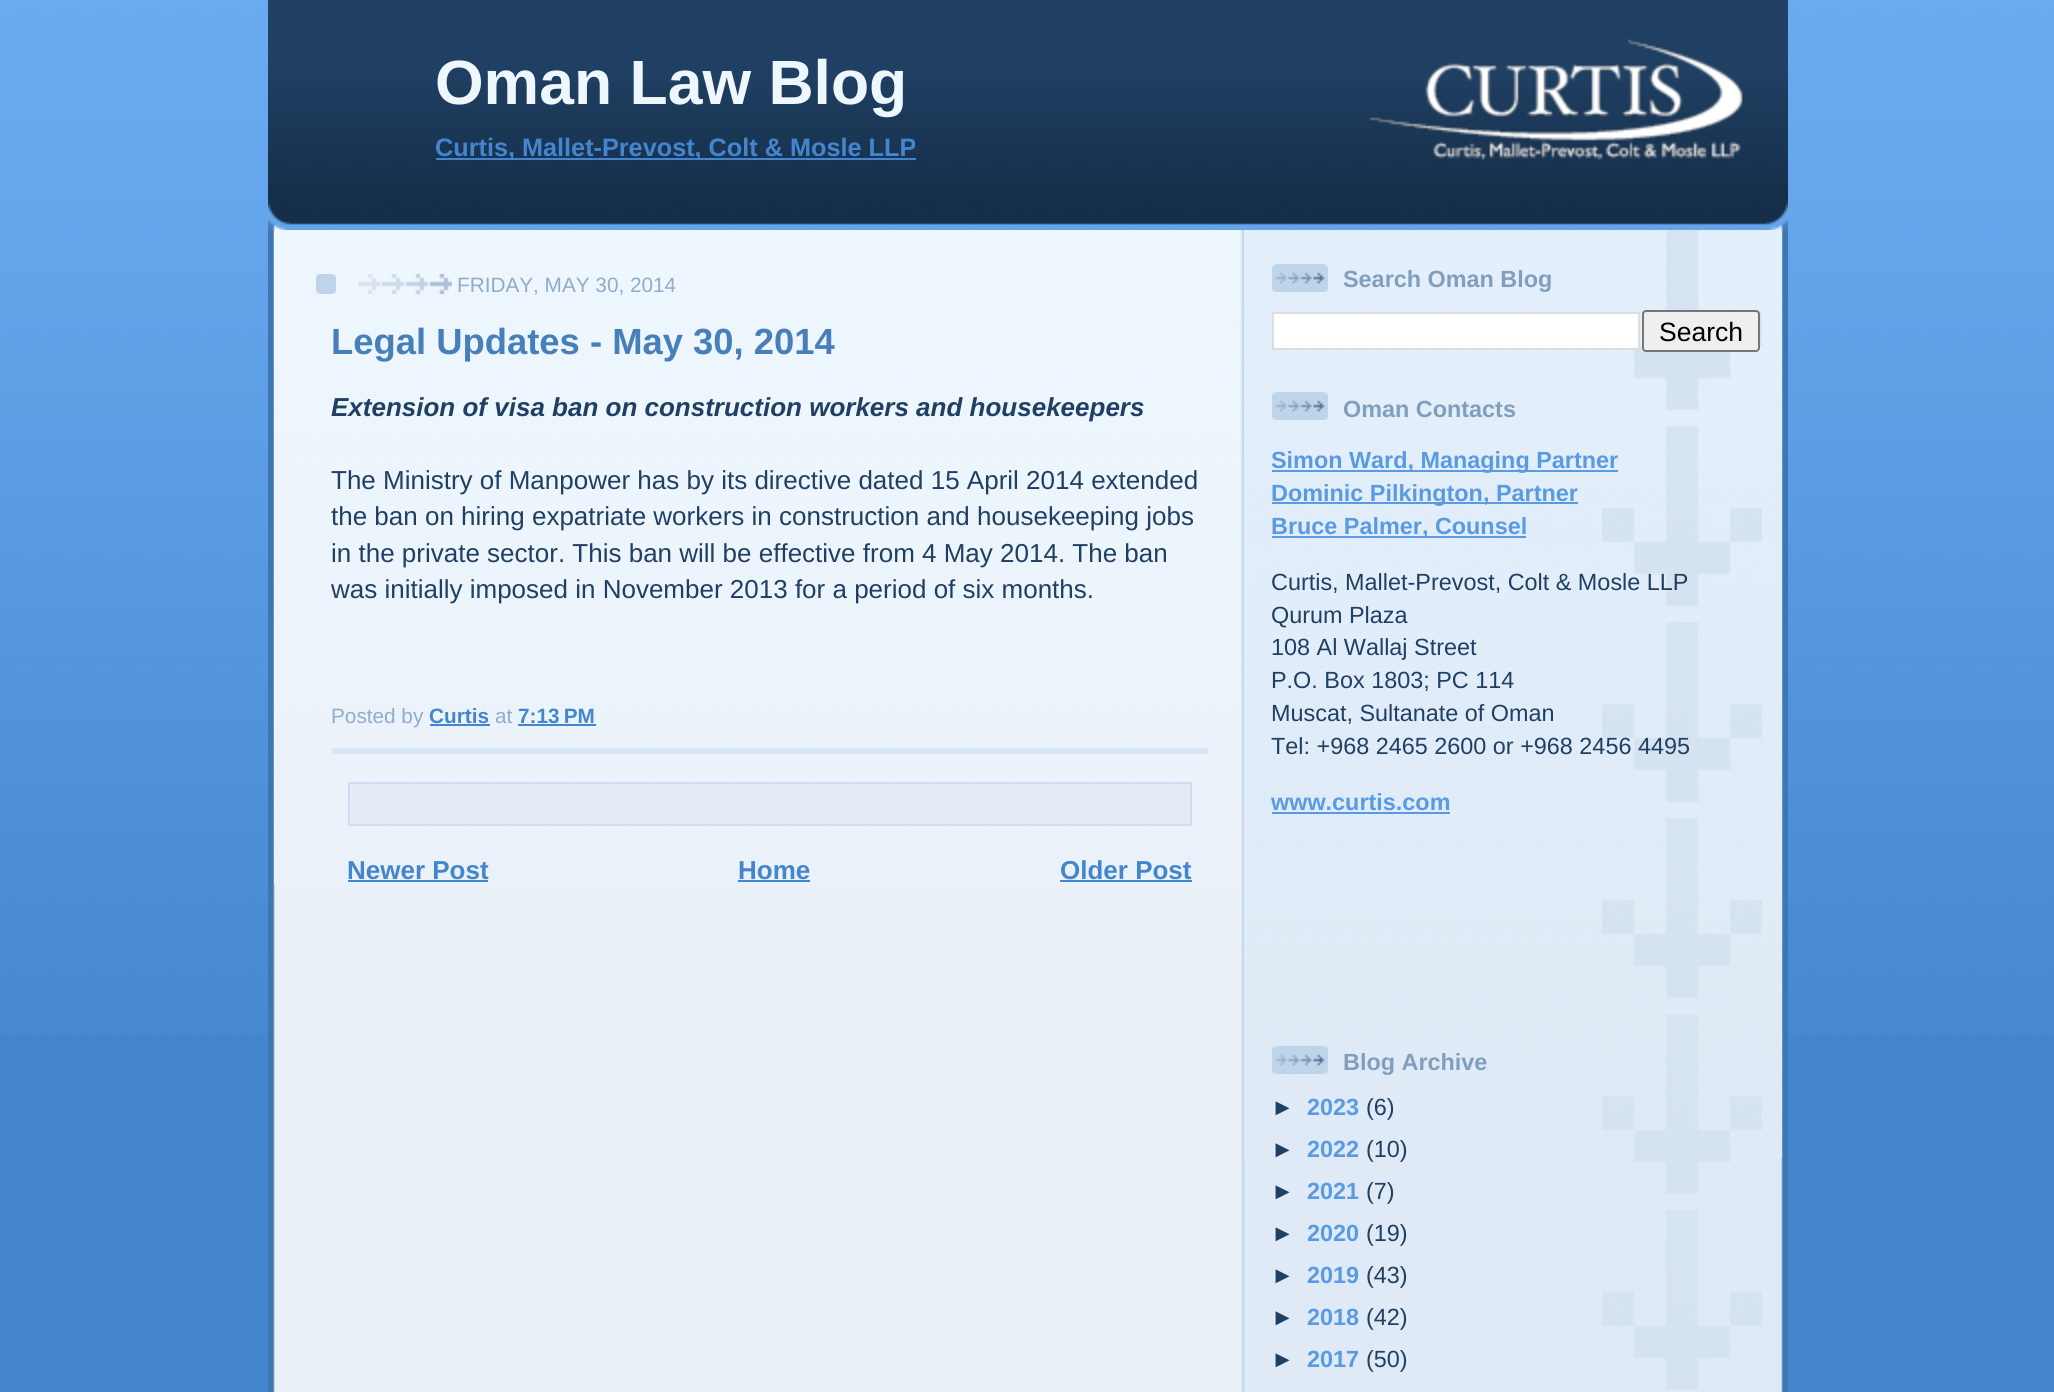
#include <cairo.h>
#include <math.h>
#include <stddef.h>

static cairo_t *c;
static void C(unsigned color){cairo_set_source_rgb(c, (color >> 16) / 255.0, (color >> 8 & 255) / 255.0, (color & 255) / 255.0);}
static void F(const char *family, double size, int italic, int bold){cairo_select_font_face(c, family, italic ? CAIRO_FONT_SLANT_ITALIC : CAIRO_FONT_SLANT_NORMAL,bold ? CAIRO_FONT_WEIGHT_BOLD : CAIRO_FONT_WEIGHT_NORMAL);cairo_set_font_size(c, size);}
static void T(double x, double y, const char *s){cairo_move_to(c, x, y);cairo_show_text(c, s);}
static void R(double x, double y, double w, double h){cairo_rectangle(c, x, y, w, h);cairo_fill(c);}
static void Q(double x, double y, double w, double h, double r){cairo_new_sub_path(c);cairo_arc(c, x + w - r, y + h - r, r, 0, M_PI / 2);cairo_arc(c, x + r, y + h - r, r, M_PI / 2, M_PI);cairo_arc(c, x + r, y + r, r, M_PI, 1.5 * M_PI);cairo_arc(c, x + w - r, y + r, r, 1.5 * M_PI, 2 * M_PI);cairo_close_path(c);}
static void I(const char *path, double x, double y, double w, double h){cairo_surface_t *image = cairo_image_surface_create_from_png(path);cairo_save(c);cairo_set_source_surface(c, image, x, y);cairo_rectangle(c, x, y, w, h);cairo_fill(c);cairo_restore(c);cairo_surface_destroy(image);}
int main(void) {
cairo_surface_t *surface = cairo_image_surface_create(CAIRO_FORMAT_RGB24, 2054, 1392);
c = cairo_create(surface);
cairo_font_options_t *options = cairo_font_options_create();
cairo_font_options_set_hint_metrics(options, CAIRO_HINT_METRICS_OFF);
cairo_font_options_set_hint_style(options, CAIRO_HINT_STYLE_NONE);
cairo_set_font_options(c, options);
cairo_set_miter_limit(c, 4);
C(0x4386ce);
cairo_paint(c);
I("1.png",0,0,2054,1034);
I("2.png",268,200,1520,30);
C(0x204063);
R(268,0,1520,82);
I("3.png",268,82,1520,118);
I("4.png",1369,39,374,122);
F("Liberation Sans",62.5,0,1);
C(0xeef6fe);
T(435,104,"Oman Law Blog");
C(0x4386ce);
R(436,158,480,2);
F("Liberation Sans",25.25,0,1);
T(435,156,"Curtis, Mallet-Prevost, Colt & Mosle LLP");
I("5.png",268,230,1520,1162);
I("6.png",274,230,966,654);
I("7.png",316,274,20,20);
I("8.png",358,274,94,20);
F("Liberation Sans",20.75,0,0);
C(0x8facc8);
T(457,292,"FRIDAY, MAY 30, 2014");
C(0xd8e7f7);
R(332,748,876,6);
F("Liberation Sans",36.4,0,1);
C(0x477fba);
T(331,354,"Legal Updates - May 30, 2014");
F("Liberation Sans",26,1,1);
C(0x204063);
T(331,416,"Extension of visa ban on construction workers and housekeepers");
F("Liberation Sans",26,0,0);
T(331,489,"The Ministry of Manpower has by its directive dated 15 April 2014 extended");
T(331,525,"the ban on hiring expatriate workers in construction and housekeeping jobs");
T(331,562,"in the private sector. This ban will be effective from 4 May 2014. The ban");
T(331,598,"was initially imposed in November 2013 for a period of six months.");
F("Liberation Sans",20.75,0,0);
C(0x8facc8);
T(331,723,"Posted by");
F("Liberation Sans",20.75,0,1);
C(0x4386ce);
T(429,723,"Curtis");
R(430,724,60,2);
F("Liberation Sans",20.75,0,0);
C(0x8facc8);
T(495,723,"at");
F("Liberation Sans",20.75,0,1);
C(0x4386ce);
T(518,723,"7:13 PM");
R(518,724,78,2);
C(0xe4ecf5);
cairo_rectangle(c,349,783,842,42);
cairo_fill_preserve(c);
C(0xcedef0);
cairo_stroke(c);
F("Liberation Sans",26,0,1);
C(0x4386ce);
T(347,879,"Newer Post");
R(348,880,140,2);
T(738,879,"Home");
R(738,880,72,2);
T(1060,879,"Older Post");
R(1060,880,132,2);
I("9.png",1244,230,538,928);
I("10.png",1602,230,160,1160);
I("11.png",1272,264,56,28);
F("Liberation Sans",23.4,0,1);
C(0x809fbd);
T(1343,287,"Search Oman Blog");
C(0xffffff);
cairo_rectangle(c,1273,313,366,36);
cairo_fill_preserve(c);
C(0xdddddd);
cairo_stroke(c);
C(0xefefef);
Q(1643,311,116,40,3);
cairo_fill_preserve(c);
C(0x767676);
cairo_stroke(c);
F("Liberation Sans",26.5,0,0);
C(0x000000);
T(1659,341,"Search");
I("12.png",1272,392,56,28);
F("Liberation Sans",23.4,0,1);
C(0x809fbd);
T(1343,417,"Oman Contacts");
C(0x599be2);
R(1272,470,346,2);
T(1271,468,"Simon Ward, Managing Partner");
R(1272,502,306,2);
T(1271,501,"Dominic Pilkington, Partner");
R(1272,536,254,2);
T(1271,534,"Bruce Palmer, Counsel");
F("Liberation Sans",23.4,0,0);
C(0x204063);
T(1271,590,"Curtis, Mallet-Prevost, Colt & Mosle LLP");
T(1271,623,"Qurum Plaza");
T(1271,655,"108 Al Wallaj Street");
T(1271,688,"P.O. Box 1803; PC 114");
T(1271,721,"Muscat, Sultanate of Oman");
T(1271,754,"Tel: +968 2465 2600 or +968 2456 4495");
F("Liberation Sans",23.4,0,1);
C(0x599be2);
T(1271,810,"www.curtis.com");
R(1272,812,178,2);
I("13.png",1272,1046,56,28);
C(0x809fbd);
T(1343,1070,"Blog Archive");
C(0x204063);
T(1271,1115,"►");
C(0x599be2);
T(1307,1115,"2023");
F("Liberation Sans",23.4,0,0);
C(0x204063);
T(1366,1115,"(6)");
F("Liberation Sans",23.4,0,1);
T(1271,1157,"►");
C(0x599be2);
T(1307,1157,"2022");
F("Liberation Sans",23.4,0,0);
C(0x204063);
T(1366,1157,"(10)");
F("Liberation Sans",23.4,0,1);
T(1271,1199,"►");
C(0x599be2);
T(1307,1199,"2021");
F("Liberation Sans",23.4,0,0);
C(0x204063);
T(1366,1199,"(7)");
F("Liberation Sans",23.4,0,1);
T(1271,1241,"►");
C(0x599be2);
T(1307,1241,"2020");
F("Liberation Sans",23.4,0,0);
C(0x204063);
T(1366,1241,"(19)");
F("Liberation Sans",23.4,0,1);
T(1271,1283,"►");
C(0x599be2);
T(1307,1283,"2019");
F("Liberation Sans",23.4,0,0);
C(0x204063);
T(1366,1283,"(43)");
F("Liberation Sans",23.4,0,1);
T(1271,1325,"►");
C(0x599be2);
T(1307,1325,"2018");
F("Liberation Sans",23.4,0,0);
C(0x204063);
T(1366,1325,"(42)");
F("Liberation Sans",23.4,0,1);
T(1271,1367,"►");
C(0x599be2);
T(1307,1367,"2017");
F("Liberation Sans",23.4,0,0);
C(0x204063);
T(1366,1367,"(50)");
cairo_surface_write_to_png(surface, "o.png");
cairo_font_options_destroy(options);
cairo_destroy(c);
cairo_surface_destroy(surface);
return 0;
}
